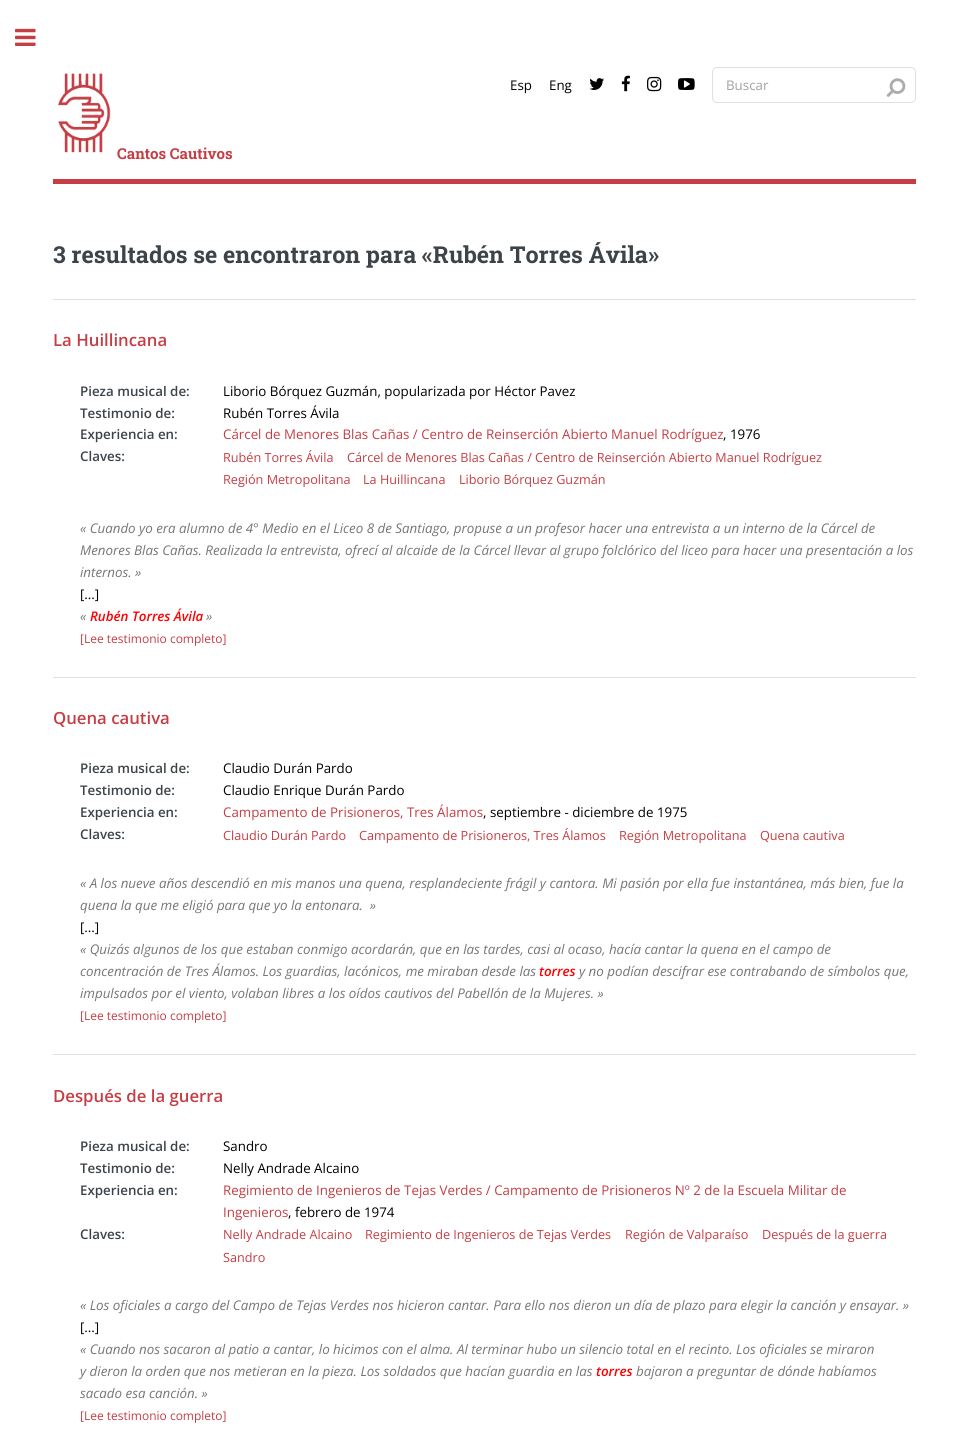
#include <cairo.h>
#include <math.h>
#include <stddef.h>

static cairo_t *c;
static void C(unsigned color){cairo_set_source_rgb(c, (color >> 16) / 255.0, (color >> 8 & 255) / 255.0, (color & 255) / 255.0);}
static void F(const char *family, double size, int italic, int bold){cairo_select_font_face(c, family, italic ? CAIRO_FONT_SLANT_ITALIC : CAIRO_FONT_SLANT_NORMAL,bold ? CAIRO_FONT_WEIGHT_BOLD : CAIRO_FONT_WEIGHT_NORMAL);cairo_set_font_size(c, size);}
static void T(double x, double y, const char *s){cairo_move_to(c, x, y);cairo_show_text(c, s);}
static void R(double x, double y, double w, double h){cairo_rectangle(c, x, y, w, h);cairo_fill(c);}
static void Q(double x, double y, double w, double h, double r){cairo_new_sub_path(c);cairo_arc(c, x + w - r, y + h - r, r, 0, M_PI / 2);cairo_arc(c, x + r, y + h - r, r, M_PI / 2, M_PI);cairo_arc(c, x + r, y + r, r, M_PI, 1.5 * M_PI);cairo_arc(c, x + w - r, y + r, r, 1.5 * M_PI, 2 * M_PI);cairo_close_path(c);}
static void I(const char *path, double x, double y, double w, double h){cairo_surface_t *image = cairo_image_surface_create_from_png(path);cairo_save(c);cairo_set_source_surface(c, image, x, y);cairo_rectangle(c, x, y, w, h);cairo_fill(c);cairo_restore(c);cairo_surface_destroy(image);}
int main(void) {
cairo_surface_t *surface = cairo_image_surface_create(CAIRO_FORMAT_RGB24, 969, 1436);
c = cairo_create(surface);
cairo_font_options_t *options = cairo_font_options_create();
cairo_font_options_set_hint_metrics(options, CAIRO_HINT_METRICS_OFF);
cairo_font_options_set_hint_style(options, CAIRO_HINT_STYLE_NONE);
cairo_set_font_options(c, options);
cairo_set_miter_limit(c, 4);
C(0xffffff);
cairo_paint(c);
I("1.png",15,28,21,18);
C(0xc43e44);
R(53,179,863,5);
F("Open Sans",13.33,0,0);
C(0x000000);
T(510,90,"Esp");
T(549,90,"Eng");
I("2.png",589,78,15,12);
I("3.png",621,75,9,17);
I("4.png",647,76,15,16);
I("5.png",678,78,17,12);
Q(712.5,67.5,203,35,4.5);
C(0xdde1e3);
cairo_set_line_width(c,1);
cairo_stroke(c);
C(0x9fa3a6);
T(726,90,"Buscar");
I("6.png",886,78,20,19);
I("7.png",58,73,53,80);
F("Roboto Slab",15,0,1);
C(0xc43e44);
T(117,159,"Cantos Cautivos");
F("Roboto Slab",23.3,0,1);
C(0x3d4449);
T(53,263,"3 resultados se encontraron para «Rubén Torres Ávila»");
C(0xdde1e3);
R(53,299,863,1);
F("Open Sans SemiBold",16.75,0,0);
C(0xc43e44);
T(53,346,"La Huillincana");
F("Open Sans SemiBold",13.33,0,0);
C(0x3d4449);
T(80,396,"Pieza musical de:");
F("Open Sans",13.33,0,0);
C(0x000000);
T(223,396,"Liborio Bórquez Guzmán, popularizada por Héctor Pavez");
F("Open Sans SemiBold",13.33,0,0);
C(0x3d4449);
T(80,418,"Testimonio de:");
F("Open Sans",13.33,0,0);
C(0x000000);
T(223,418,"Rubén Torres Ávila");
F("Open Sans SemiBold",13.33,0,0);
C(0x3d4449);
T(80,439,"Experiencia en:");
F("Open Sans",13.33,0,0);
C(0xc43e44);
T(223,439,"Cárcel de Menores Blas Cañas / Centro de Reinserción Abierto Manuel Rodríguez");
C(0x000000);
T(723,439,", 1976");
F("Open Sans SemiBold",13.33,0,0);
C(0x3d4449);
T(80,461,"Claves:");
F("Open Sans",12.65,0,0);
C(0xc43e44);
T(223,462,"Rubén Torres Ávila");
T(347,462,"Cárcel de Menores Blas Cañas / Centro de Reinserción Abierto Manuel Rodríguez");
T(223,484,"Región Metropolitana");
T(363,484,"La Huillincana");
T(459,484,"Liborio Bórquez Guzmán");
F("Open Sans",13.33,1,0);
C(0x767676);
T(80,533,"« Cuando yo era alumno de 4° Medio en el Liceo 8 de Santiago, propuse a un profesor hacer una entrevista a un interno de la Cárcel de");
T(80,555,"Menores Blas Cañas. Realizada la entrevista, ofrecí al alcaide de la Cárcel llevar al grupo folclórico del liceo para hacer una presentación a los");
T(80,577,"internos. »");
F("Open Sans",13.33,0,0);
C(0x000000);
T(80,599,"[...]");
F("Open Sans",13.33,1,0);
C(0x767676);
T(80,621,"«");
F("Open Sans SemiBold",13.33,1,0);
C(0xff0000);
T(90,621,"Rubén Torres Ávila");
F("Open Sans",13.33,1,0);
C(0x767676);
T(206,621,"»");
F("Open Sans",12,0,0);
C(0xc43e44);
T(80,643,"[Lee testimonio completo]");
C(0xdde1e3);
R(53,677,863,1);
F("Open Sans SemiBold",16.75,0,0);
C(0xc43e44);
T(53,724,"Quena cautiva");
F("Open Sans SemiBold",13.33,0,0);
C(0x3d4449);
T(80,773,"Pieza musical de:");
F("Open Sans",13.33,0,0);
C(0x000000);
T(223,773,"Claudio Durán Pardo");
F("Open Sans SemiBold",13.33,0,0);
C(0x3d4449);
T(80,795,"Testimonio de:");
F("Open Sans",13.33,0,0);
C(0x000000);
T(223,795,"Claudio Enrique Durán Pardo");
F("Open Sans SemiBold",13.33,0,0);
C(0x3d4449);
T(80,817,"Experiencia en:");
F("Open Sans",13.33,0,0);
C(0xc43e44);
T(223,817,"Campamento de Prisioneros, Tres Álamos");
C(0x000000);
T(483,817,", septiembre - diciembre de 1975");
F("Open Sans SemiBold",13.33,0,0);
C(0x3d4449);
T(80,839,"Claves:");
F("Open Sans",12.65,0,0);
C(0xc43e44);
T(223,840,"Claudio Durán Pardo");
T(359,840,"Campamento de Prisioneros, Tres Álamos");
T(619,840,"Región Metropolitana");
T(760,840,"Quena cautiva");
F("Open Sans",13.33,1,0);
C(0x767676);
T(80,888,"« A los nueve años descendió en mis manos una quena, resplandeciente frágil y cantora. Mi pasión por ella fue instantánea, más bien, fue la");
T(80,910,"quena la que me eligió para que yo la entonara.  »");
F("Open Sans",13.33,0,0);
C(0x000000);
T(80,932,"[...]");
F("Open Sans",13.33,1,0);
C(0x767676);
T(80,954,"« Quizás algunos de los que estaban conmigo acordarán, que en las tardes, casi al ocaso, hacía cantar la quena en el campo de");
T(80,976,"concentración de Tres Álamos. Los guardias, lacónicos, me miraban desde las");
F("Open Sans SemiBold",13.33,1,0);
C(0xff0000);
T(539,976,"torres");
F("Open Sans",13.33,1,0);
C(0x767676);
T(579,976,"y no podían descifrar ese contrabando de símbolos que,");
T(80,998,"impulsados por el viento, volaban libres a los oídos cautivos del Pabellón de la Mujeres. »");
F("Open Sans",12,0,0);
C(0xc43e44);
T(80,1020,"[Lee testimonio completo]");
C(0xdde1e3);
R(53,1054,863,1);
F("Open Sans SemiBold",16.75,0,0);
C(0xc43e44);
T(53,1102,"Después de la guerra");
F("Open Sans SemiBold",13.33,0,0);
C(0x3d4449);
T(80,1151,"Pieza musical de:");
F("Open Sans",13.33,0,0);
C(0x000000);
T(223,1151,"Sandro");
F("Open Sans SemiBold",13.33,0,0);
C(0x3d4449);
T(80,1173,"Testimonio de:");
F("Open Sans",13.33,0,0);
C(0x000000);
T(223,1173,"Nelly Andrade Alcaino");
F("Open Sans SemiBold",13.33,0,0);
C(0x3d4449);
T(80,1195,"Experiencia en:");
F("Open Sans",13.33,0,0);
C(0xc43e44);
T(223,1195,"Regimiento de Ingenieros de Tejas Verdes / Campamento de Prisioneros Nº 2 de la Escuela Militar de");
T(223,1217,"Ingenieros");
C(0x000000);
T(288,1217,", febrero de 1974");
F("Open Sans SemiBold",13.33,0,0);
C(0x3d4449);
T(80,1239,"Claves:");
F("Open Sans",12.65,0,0);
C(0xc43e44);
T(223,1239,"Nelly Andrade Alcaino");
T(365,1239,"Regimiento de Ingenieros de Tejas Verdes");
T(625,1239,"Región de Valparaíso");
T(762,1239,"Después de la guerra");
T(223,1262,"Sandro");
F("Open Sans",13.33,1,0);
C(0x767676);
T(80,1310,"« Los oficiales a cargo del Campo de Tejas Verdes nos hicieron cantar. Para ello nos dieron un día de plazo para elegir la canción y ensayar. »");
F("Open Sans",13.33,0,0);
C(0x000000);
T(80,1332,"[...]");
F("Open Sans",13.33,1,0);
C(0x767676);
T(80,1354,"« Cuando nos sacaron al patio a cantar, lo hicimos con el alma. Al terminar hubo un silencio total en el recinto. Los oficiales se miraron");
T(80,1376,"y dieron la orden que nos metieran en la pieza. Los soldados que hacían guardia en las");
F("Open Sans SemiBold",13.33,1,0);
C(0xff0000);
T(596,1376,"torres");
F("Open Sans",13.33,1,0);
C(0x767676);
T(636,1376,"bajaron a preguntar de dónde habíamos");
T(80,1398,"sacado esa canción. »");
F("Open Sans",12,0,0);
C(0xc43e44);
T(80,1420,"[Lee testimonio completo]");
cairo_surface_write_to_png(surface, "o.png");
cairo_font_options_destroy(options);
cairo_destroy(c);
cairo_surface_destroy(surface);
return 0;
}
